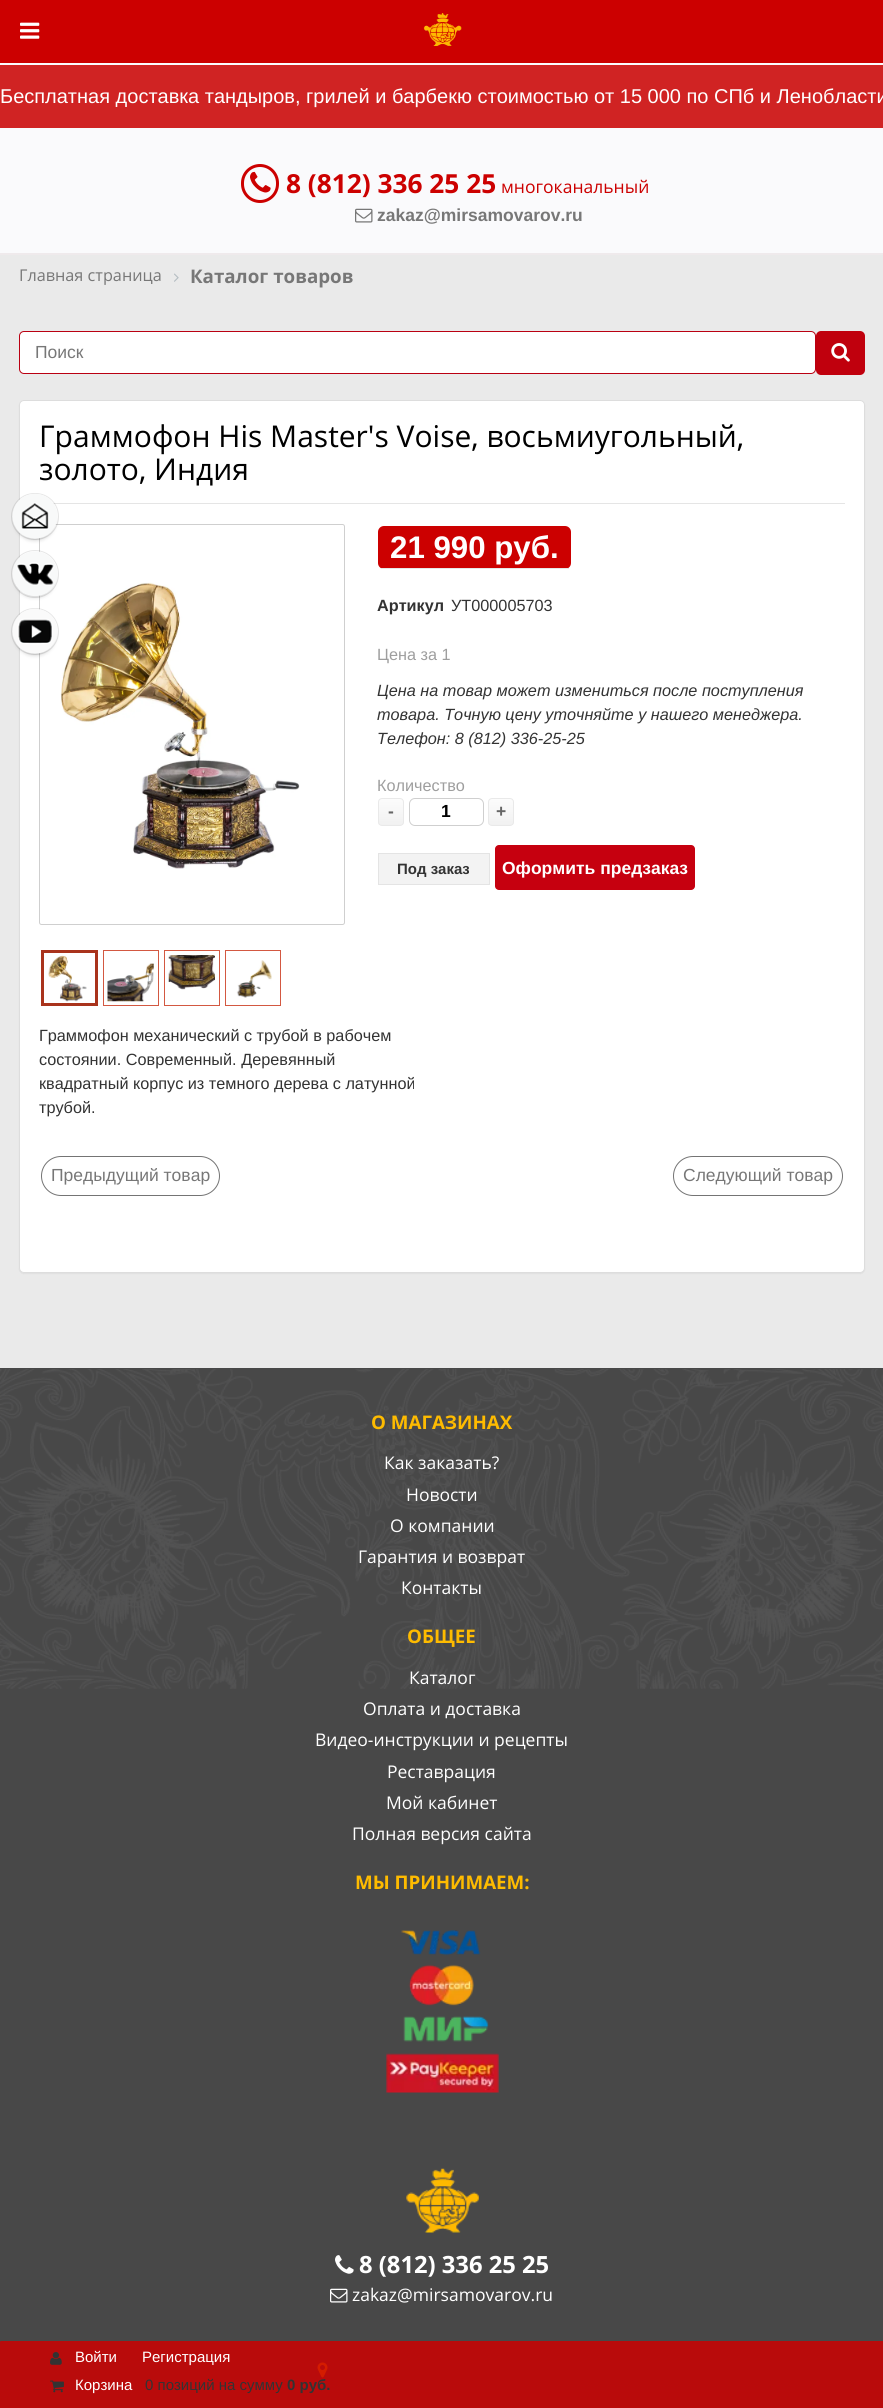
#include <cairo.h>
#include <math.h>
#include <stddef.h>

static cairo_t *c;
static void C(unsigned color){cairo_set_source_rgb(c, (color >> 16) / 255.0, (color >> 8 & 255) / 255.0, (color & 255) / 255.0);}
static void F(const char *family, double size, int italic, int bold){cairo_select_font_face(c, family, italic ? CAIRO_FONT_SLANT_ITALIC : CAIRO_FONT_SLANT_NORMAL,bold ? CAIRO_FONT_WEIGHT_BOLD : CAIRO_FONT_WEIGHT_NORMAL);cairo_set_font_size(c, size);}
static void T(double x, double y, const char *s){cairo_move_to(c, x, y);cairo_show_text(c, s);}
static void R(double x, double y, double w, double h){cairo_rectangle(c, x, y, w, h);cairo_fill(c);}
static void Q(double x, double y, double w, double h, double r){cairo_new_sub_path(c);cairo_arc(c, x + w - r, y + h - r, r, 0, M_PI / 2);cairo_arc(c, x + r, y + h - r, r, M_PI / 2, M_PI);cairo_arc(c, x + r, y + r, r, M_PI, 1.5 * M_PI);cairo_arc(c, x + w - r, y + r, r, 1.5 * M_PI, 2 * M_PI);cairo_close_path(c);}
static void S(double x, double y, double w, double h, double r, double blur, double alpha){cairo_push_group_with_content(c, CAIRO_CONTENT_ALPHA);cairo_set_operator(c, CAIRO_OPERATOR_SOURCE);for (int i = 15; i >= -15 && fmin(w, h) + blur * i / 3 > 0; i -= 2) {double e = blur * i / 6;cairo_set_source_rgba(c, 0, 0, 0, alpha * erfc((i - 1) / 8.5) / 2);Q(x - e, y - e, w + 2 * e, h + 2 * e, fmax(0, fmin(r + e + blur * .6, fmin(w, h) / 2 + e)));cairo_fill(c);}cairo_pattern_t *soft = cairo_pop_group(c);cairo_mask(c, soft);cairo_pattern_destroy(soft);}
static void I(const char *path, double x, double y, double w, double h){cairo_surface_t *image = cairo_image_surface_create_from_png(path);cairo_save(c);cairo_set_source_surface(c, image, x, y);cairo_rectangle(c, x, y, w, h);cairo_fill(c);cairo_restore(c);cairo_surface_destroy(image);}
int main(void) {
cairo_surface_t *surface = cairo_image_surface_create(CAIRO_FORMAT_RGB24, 883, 2408);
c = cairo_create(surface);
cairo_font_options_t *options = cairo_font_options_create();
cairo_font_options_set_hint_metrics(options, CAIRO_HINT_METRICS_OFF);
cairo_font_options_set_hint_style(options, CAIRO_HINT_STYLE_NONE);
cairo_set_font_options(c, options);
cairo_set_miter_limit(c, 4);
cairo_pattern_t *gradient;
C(0xeaeaea);
cairo_paint(c);
C(0xcc0000);
R(0,0,883,63);
I("1.png",20,22,20,17);
C(0xfafafc);
R(0,63,883,190);
C(0xefeaec);
R(0,253,883,2);
I("2.png",423,13,39,33);
C(0xd02323);
R(0,65,883,63);
F("Liberation Sans",20,0,0);
C(0xffffff);
T(0,103,"Бесплатная доставка тандыров, грилей и барбекю стоимостью от 15 000 по СПб и Ленобласти");
Q(242.5,165.5,35,36,17.5);
C(0xcc0000);
cairo_set_line_width(c,3);
cairo_stroke(c);
I("3.png",250,171,21,22);
F("Open Sans",26.25,0,1);
T(286,193,"8 (812) 336 25 25");
F("Open Sans",17.5,0,0);
T(501,193,"многоканальный");
I("4.png",355,208,18,15);
F("Liberation Sans",17.5,0,1);
C(0x777777);
T(377,221,"zakaz@mirsamovarov.ru");
F("Open Sans",16.25,0,0);
T(19,281,"Главная страница");
I("5.png",174,273,5,9);
F("Open Sans",18.75,0,1);
T(190,283,"Каталог товаров");
C(0xffffff);
Q(19.5,331.5,796,42,4.5);
cairo_fill_preserve(c);
C(0xba0012);
cairo_set_line_width(c,1);
cairo_stroke(c);
F("Liberation Sans",17.5,0,0);
C(0x777777);
T(35,358,"Поиск");
C(0xc0000d);
Q(816,331,49,44,5);
cairo_fill(c);
I("6.png",831,343,19,19);
C(0x000000);
S(19,401,846,873,5,.5,.05);
C(0xffffff);
Q(19.5,400.5,845,872,4.5);
cairo_fill_preserve(c);
C(0xdddddd);
cairo_stroke(c);
C(0xe5e5e5);
R(53,503,792,1);
F("Open Sans",30,0,0);
C(0x000000);
T(39,447,"Граммофон His Master's Voise, восьмиугольный,");
T(39,480,"золото, Индия");
Q(39.5,524.5,305,400,2);
C(0xcfcfcf);
cairo_stroke(c);
I("7.png",60,582,240,287);
cairo_rectangle(c,42.5,951.5,54,53);
C(0xa9331c);
cairo_set_line_width(c,3);
cairo_stroke(c);
I("8.png",48,955,39,47);
cairo_rectangle(c,103.5,950.5,55,55);
C(0xd35841);
cairo_set_line_width(c,1);
cairo_stroke(c);
I("9.png",107,963,47,39);
cairo_rectangle(c,164.5,950.5,55,55);
cairo_stroke(c);
I("10.png",168,955,47,35);
cairo_rectangle(c,225.5,950.5,55,55);
cairo_stroke(c);
I("11.png",236,960,36,38);
C(0xcc0000);
Q(378,526,193,43,6);
cairo_fill(c);
C(0xe6e6e6);
R(381,568,188,1);
F("Liberation Sans",31.25,0,1);
C(0xffffff);
T(390,558,"21 990 руб.");
F("Liberation Sans",16.25,0,1);
C(0x333333);
T(377,611,"Артикул");
F("Liberation Sans",16.25,0,0);
T(451,611,"УТ000005703");
C(0x9e9e9e);
T(377,660,"Цена за 1");
F("Liberation Sans",16.25,1,0);
C(0x333333);
T(377,696,"Цена на товар может измениться после поступления");
T(377,720,"товара. Точную цену уточняйте у нашего менеджера.");
T(377,744,"Телефон: 8 (812) 336-25-25");
F("Liberation Sans",16.25,0,0);
C(0x9e9e9e);
T(377,791,"Количество");
cairo_save(c);
Q(378,798,26,28,4);
cairo_clip(c);
gradient = cairo_pattern_create_linear(391,799,391,825);
cairo_pattern_add_color_stop_rgba(gradient,0,0.988,0.988,0.988,1);
cairo_pattern_add_color_stop_rgba(gradient,1,0.945,0.945,0.945,1);
cairo_set_source(c,gradient);
cairo_pattern_destroy(gradient);
R(378,799,26,26);
cairo_restore(c);
Q(378.5,798.5,25,27,3.5);
C(0xe9e9e9);
cairo_stroke(c);
F("Liberation Sans",17.5,0,1);
C(0x656565);
T(388,817,"-");
Q(409.5,798.5,74,27,5.5);
C(0xcfcfcf);
cairo_stroke(c);
C(0x000000);
T(441,817,"1");
cairo_save(c);
Q(488,798,26,28,4);
cairo_clip(c);
gradient = cairo_pattern_create_linear(501,799,501,825);
cairo_pattern_add_color_stop_rgba(gradient,0,0.988,0.988,0.988,1);
cairo_pattern_add_color_stop_rgba(gradient,1,0.945,0.945,0.945,1);
cairo_set_source(c,gradient);
cairo_pattern_destroy(gradient);
R(488,799,26,26);
cairo_restore(c);
Q(488.5,798.5,25,27,3.5);
C(0xe9e9e9);
cairo_stroke(c);
C(0x656565);
T(496,817,"+");
C(0xf3f3f3);
cairo_rectangle(c,378.5,853.5,111,31);
cairo_fill_preserve(c);
C(0xe4e4e4);
cairo_stroke(c);
F("Liberation Sans",15,0,1);
C(0x333333);
T(397,874,"Под заказ");
C(0xc6000f);
Q(495,845,200,45,4);
cairo_fill(c);
F("Liberation Sans",17.5,0,1);
C(0xffffff);
T(502,874,"Оформить предзаказ");
F("Liberation Sans",16.25,0,0);
C(0x333333);
T(39,1041,"Граммофон механический с трубой в рабочем");
T(39,1065,"состоянии. Современный. Деревянный");
T(39,1089,"квадратный корпус из темного дерева с латунной");
T(39,1113,"трубой.");
Q(41.5,1156.5,178,39,19.5);
C(0x747474);
cairo_stroke(c);
F("Liberation Sans",17.5,0,0);
C(0x777777);
T(51,1181,"Предыдущий товар");
Q(673.5,1156.5,169,39,19.5);
C(0x747474);
cairo_stroke(c);
C(0x777777);
T(683,1181,"Следующий товар");
C(0x484848);
R(0,1368,883,1040);
I("12.png",0,1369,883,320);
F("Open Sans",18.75,0,1);
C(0xfebb00);
T(371,1429,"О МАГАЗИНАХ");
F("Open Sans",17.5,0,0);
C(0xffffff);
T(384,1469,"Как заказать?");
T(406,1501,"Новости");
T(390,1532,"О компании");
T(358,1563,"Гарантия и возврат");
T(401,1594,"Контакты");
F("Open Sans",18.75,0,1);
C(0xfebb00);
T(407,1643,"ОБЩЕЕ");
F("Open Sans",17.5,0,0);
C(0xffffff);
T(409,1684,"Каталог");
T(363,1715,"Оплата и доставка");
T(315,1746,"Видео-инструкции и рецепты");
T(387,1778,"Реставрация");
T(386,1809,"Мой кабинет");
T(352,1840,"Полная версия сайта");
F("Open Sans",18.75,0,1);
C(0xfebb00);
T(355,1889,"МЫ ПРИНИМАЕМ:");
I("13.png",386,1930,113,163);
I("14.png",406,2168,73,65);
I("15.png",335,2255,19,19);
F("Open Sans",23.75,0,1);
C(0xffffff);
T(359,2273,"8 (812) 336 25 25");
I("16.png",330,2288,18,15);
F("Open Sans",17.5,0,0);
T(352,2301,"zakaz@mirsamovarov.ru");
I("17.png",317,2362,11,16);
cairo_set_source_rgba(c,0.8,0,0,0.85);
Q(0,2341,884,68,1);
cairo_fill(c);
I("18.png",50,2352,12,13);
F("Liberation Sans",15,0,0);
C(0xffffff);
T(75,2362,"Войти");
T(142,2362,"Регистрация");
I("19.png",50,2380,14,13);
T(75,2390,"Корзина");
C(0x333333);
T(145,2390,"0 позиций на сумму");
F("Liberation Sans",15,0,1);
T(287,2390,"0 руб.");
C(0x000000);
S(16,501,38,38,19,2.5,.3);
Q(11.5,493.5,47,46,23);
cairo_set_source_rgba(c,0,0,0,0.1);
cairo_stroke(c);
I("20.png",12,493,45,46);
C(0x000000);
S(16,559,38,37,18.5,2.5,.3);
cairo_arc(c,35,574,23.5,0,2 * M_PI);
cairo_set_source_rgba(c,0,0,0,0.1);
cairo_stroke(c);
I("21.png",12,551,45,45);
C(0x000000);
S(16,616,38,38,19,2.5,.3);
Q(11.5,608.5,47,46,23);
cairo_set_source_rgba(c,0,0,0,0.1);
cairo_stroke(c);
I("22.png",12,608,45,46);
cairo_surface_write_to_png(surface, "o.png");
cairo_font_options_destroy(options);
cairo_destroy(c);
cairo_surface_destroy(surface);
return 0;
}
